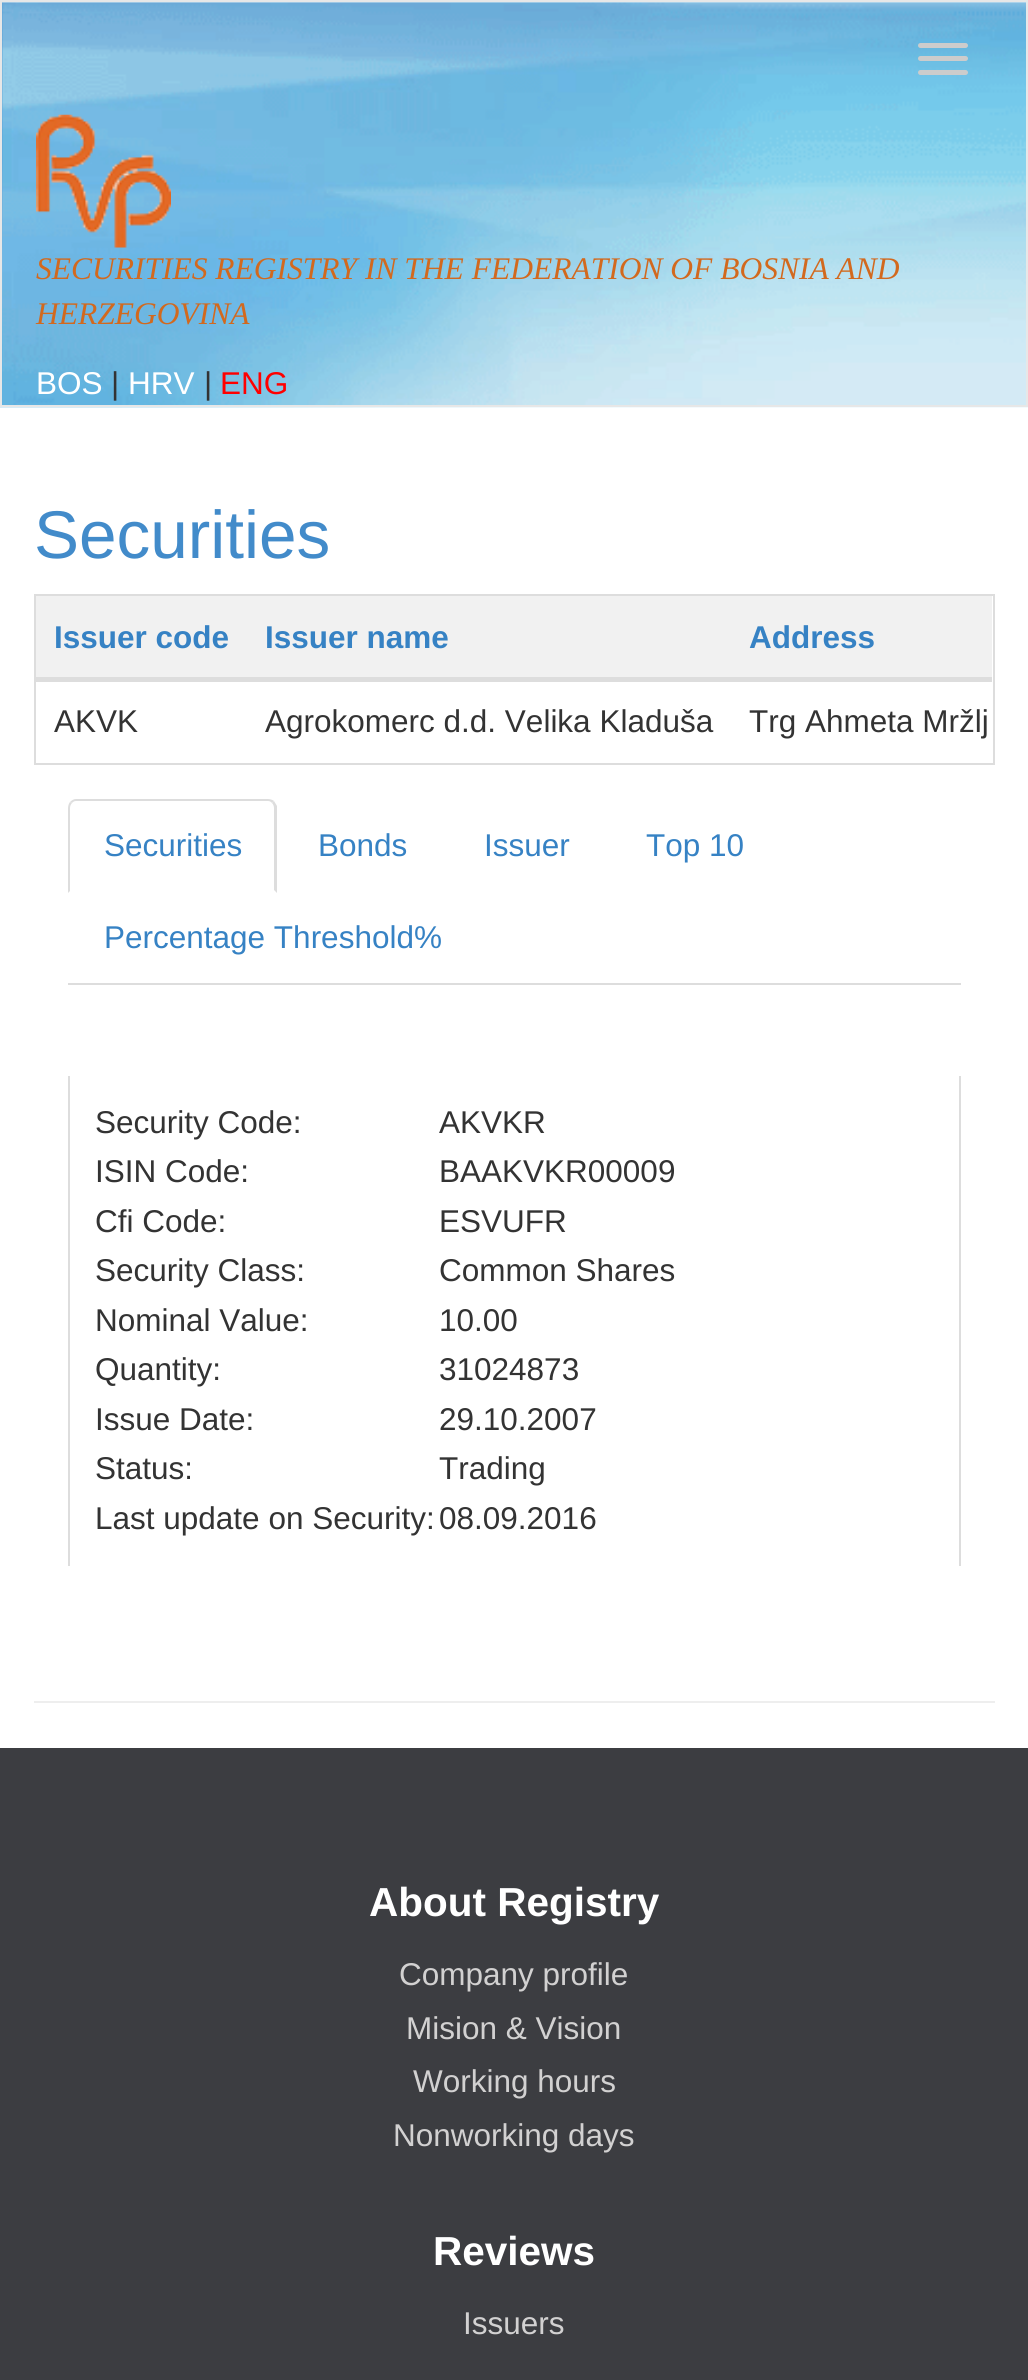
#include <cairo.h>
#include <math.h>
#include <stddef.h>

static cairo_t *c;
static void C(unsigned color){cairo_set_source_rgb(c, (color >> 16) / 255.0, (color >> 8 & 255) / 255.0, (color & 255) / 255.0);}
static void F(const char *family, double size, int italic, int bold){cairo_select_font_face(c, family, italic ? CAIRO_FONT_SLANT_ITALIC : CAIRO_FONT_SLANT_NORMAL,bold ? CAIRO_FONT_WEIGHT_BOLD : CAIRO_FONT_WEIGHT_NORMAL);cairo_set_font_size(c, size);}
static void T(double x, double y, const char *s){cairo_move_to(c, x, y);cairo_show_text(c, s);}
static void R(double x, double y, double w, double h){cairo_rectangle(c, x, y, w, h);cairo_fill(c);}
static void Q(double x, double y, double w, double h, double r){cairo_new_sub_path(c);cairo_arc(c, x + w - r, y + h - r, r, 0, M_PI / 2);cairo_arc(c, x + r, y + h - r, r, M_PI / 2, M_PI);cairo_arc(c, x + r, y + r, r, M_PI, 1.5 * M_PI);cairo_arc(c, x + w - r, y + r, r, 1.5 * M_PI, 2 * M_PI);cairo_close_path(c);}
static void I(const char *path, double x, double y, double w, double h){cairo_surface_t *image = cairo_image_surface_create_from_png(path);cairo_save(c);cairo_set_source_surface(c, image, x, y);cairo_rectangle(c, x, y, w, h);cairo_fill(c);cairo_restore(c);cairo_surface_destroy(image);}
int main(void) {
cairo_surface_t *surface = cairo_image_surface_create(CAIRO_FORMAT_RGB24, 1028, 2380);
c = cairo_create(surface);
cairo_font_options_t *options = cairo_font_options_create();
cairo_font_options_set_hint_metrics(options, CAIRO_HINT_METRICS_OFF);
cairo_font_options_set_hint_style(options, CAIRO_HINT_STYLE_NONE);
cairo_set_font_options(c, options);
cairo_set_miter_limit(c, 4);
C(0xffffff);
cairo_paint(c);
I("1.png",0,2,1028,406);
cairo_rectangle(c,1,1,1026,405);
C(0xe7e7e7);
cairo_stroke(c);
C(0xcccccc);
Q(918,43,50,5,2.5);
cairo_fill(c);
Q(918,56,50,5,2.5);
cairo_fill(c);
Q(918,70,50,5,2.5);
cairo_fill(c);
I("2.png",36,114,135,134);
F("Liberation Serif",31.5,1,0);
C(0xd2691e);
T(36,279,"SECURITIES REGISTRY IN THE FEDERATION OF BOSNIA AND");
T(36,324,"HERZEGOVINA");
F("Liberation Sans",31.5,0,0);
C(0xffffff);
T(36,394,"BOS");
C(0x333333);
T(111,394,"|");
C(0xffffff);
T(128,394,"HRV");
C(0x333333);
T(204,394,"|");
C(0xff0000);
T(220,394,"ENG");
F("Liberation Sans",67.5,0,0);
C(0x428bca);
T(34,558,"Securities");
cairo_rectangle(c,35,595,959,169);
C(0xdddddd);
cairo_stroke(c);
C(0xf1f1f1);
R(36,596,956,81);
F("Liberation Sans",31.5,0,1);
C(0x3682c4);
T(54,648,"Issuer code");
T(265,648,"Issuer name");
C(0xdddddd);
R(36,677,956,5);
C(0x3682c4);
T(749,648,"Address");
F("Liberation Sans",31.5,0,0);
C(0x333333);
T(54,732,"AKVK");
T(265,732,"Agrokomerc d.d. Velika Kladuša");
T(749,732,"Trg Ahmeta Mržlj");
C(0xdddddd);
R(68,983,893,2);
cairo_new_path(c);
cairo_move_to(c,76,799);
cairo_curve_to(c,74,799,72,800,70,802);
cairo_line_to(c,72,803);
cairo_curve_to(c,73,802,74,801,76,801);
cairo_line_to(c,268,801);
cairo_curve_to(c,270,801,271,802,272,803);
cairo_line_to(c,274,801);
cairo_curve_to(c,273,800,270,799,268,799);
cairo_close_path(c);
cairo_fill(c);
cairo_new_path(c);
cairo_move_to(c,274,801);
cairo_curve_to(c,275,803,276,804,277,806);
cairo_line_to(c,277,893);
cairo_line_to(c,274,890);
cairo_line_to(c,274,808);
cairo_curve_to(c,274,806,273,804,272,803);
cairo_close_path(c);
cairo_fill(c);
cairo_new_path(c);
cairo_move_to(c,70,802);
cairo_curve_to(c,69,803,68,806,68,808);
cairo_line_to(c,68,893);
cairo_line_to(c,70,891);
cairo_line_to(c,70,808);
cairo_curve_to(c,70,806,71,804,72,803);
cairo_close_path(c);
cairo_fill(c);
C(0x3682c4);
T(104,856,"Securities");
T(318,856,"Bonds");
T(484,856,"Issuer");
T(646,856,"Top 10");
T(104,948,"Percentage Threshold%");
C(0xdddddd);
R(959,1076,2,490);
R(68,1076,2,490);
C(0x333333);
T(95,1133,"Security Code:");
T(439,1133,"AKVKR");
T(95,1182,"ISIN Code:");
T(439,1182,"BAAKVKR00009");
T(95,1232,"Cfi Code:");
T(439,1232,"ESVUFR");
T(95,1281,"Security Class:");
T(439,1281,"Common Shares");
T(95,1331,"Nominal Value:");
T(439,1331,"10.00");
T(95,1380,"Quantity:");
T(439,1380,"31024873");
T(95,1430,"Issue Date:");
T(439,1430,"29.10.2007");
T(95,1479,"Status:");
T(439,1479,"Trading");
T(95,1529,"Last update on Security:");
T(439,1529,"08.09.2016");
C(0xeeeeee);
R(34,1701,961,2);
C(0x3c3d41);
R(0,1748,1028,632);
F("Liberation Sans",40.5,0,1);
C(0xffffff);
T(369,1916,"About Registry");
F("Liberation Sans",31.5,0,0);
C(0xd2d1d1);
T(399,1985,"Company profile");
T(406,2039,"Mision & Vision");
T(413,2092,"Working hours");
T(393,2146,"Nonworking days");
F("Liberation Sans",40.5,0,1);
C(0xffffff);
T(433,2265,"Reviews");
F("Liberation Sans",31.5,0,0);
C(0xd2d1d1);
T(463,2334,"Issuers");
cairo_surface_write_to_png(surface, "o.png");
cairo_font_options_destroy(options);
cairo_destroy(c);
cairo_surface_destroy(surface);
return 0;
}
